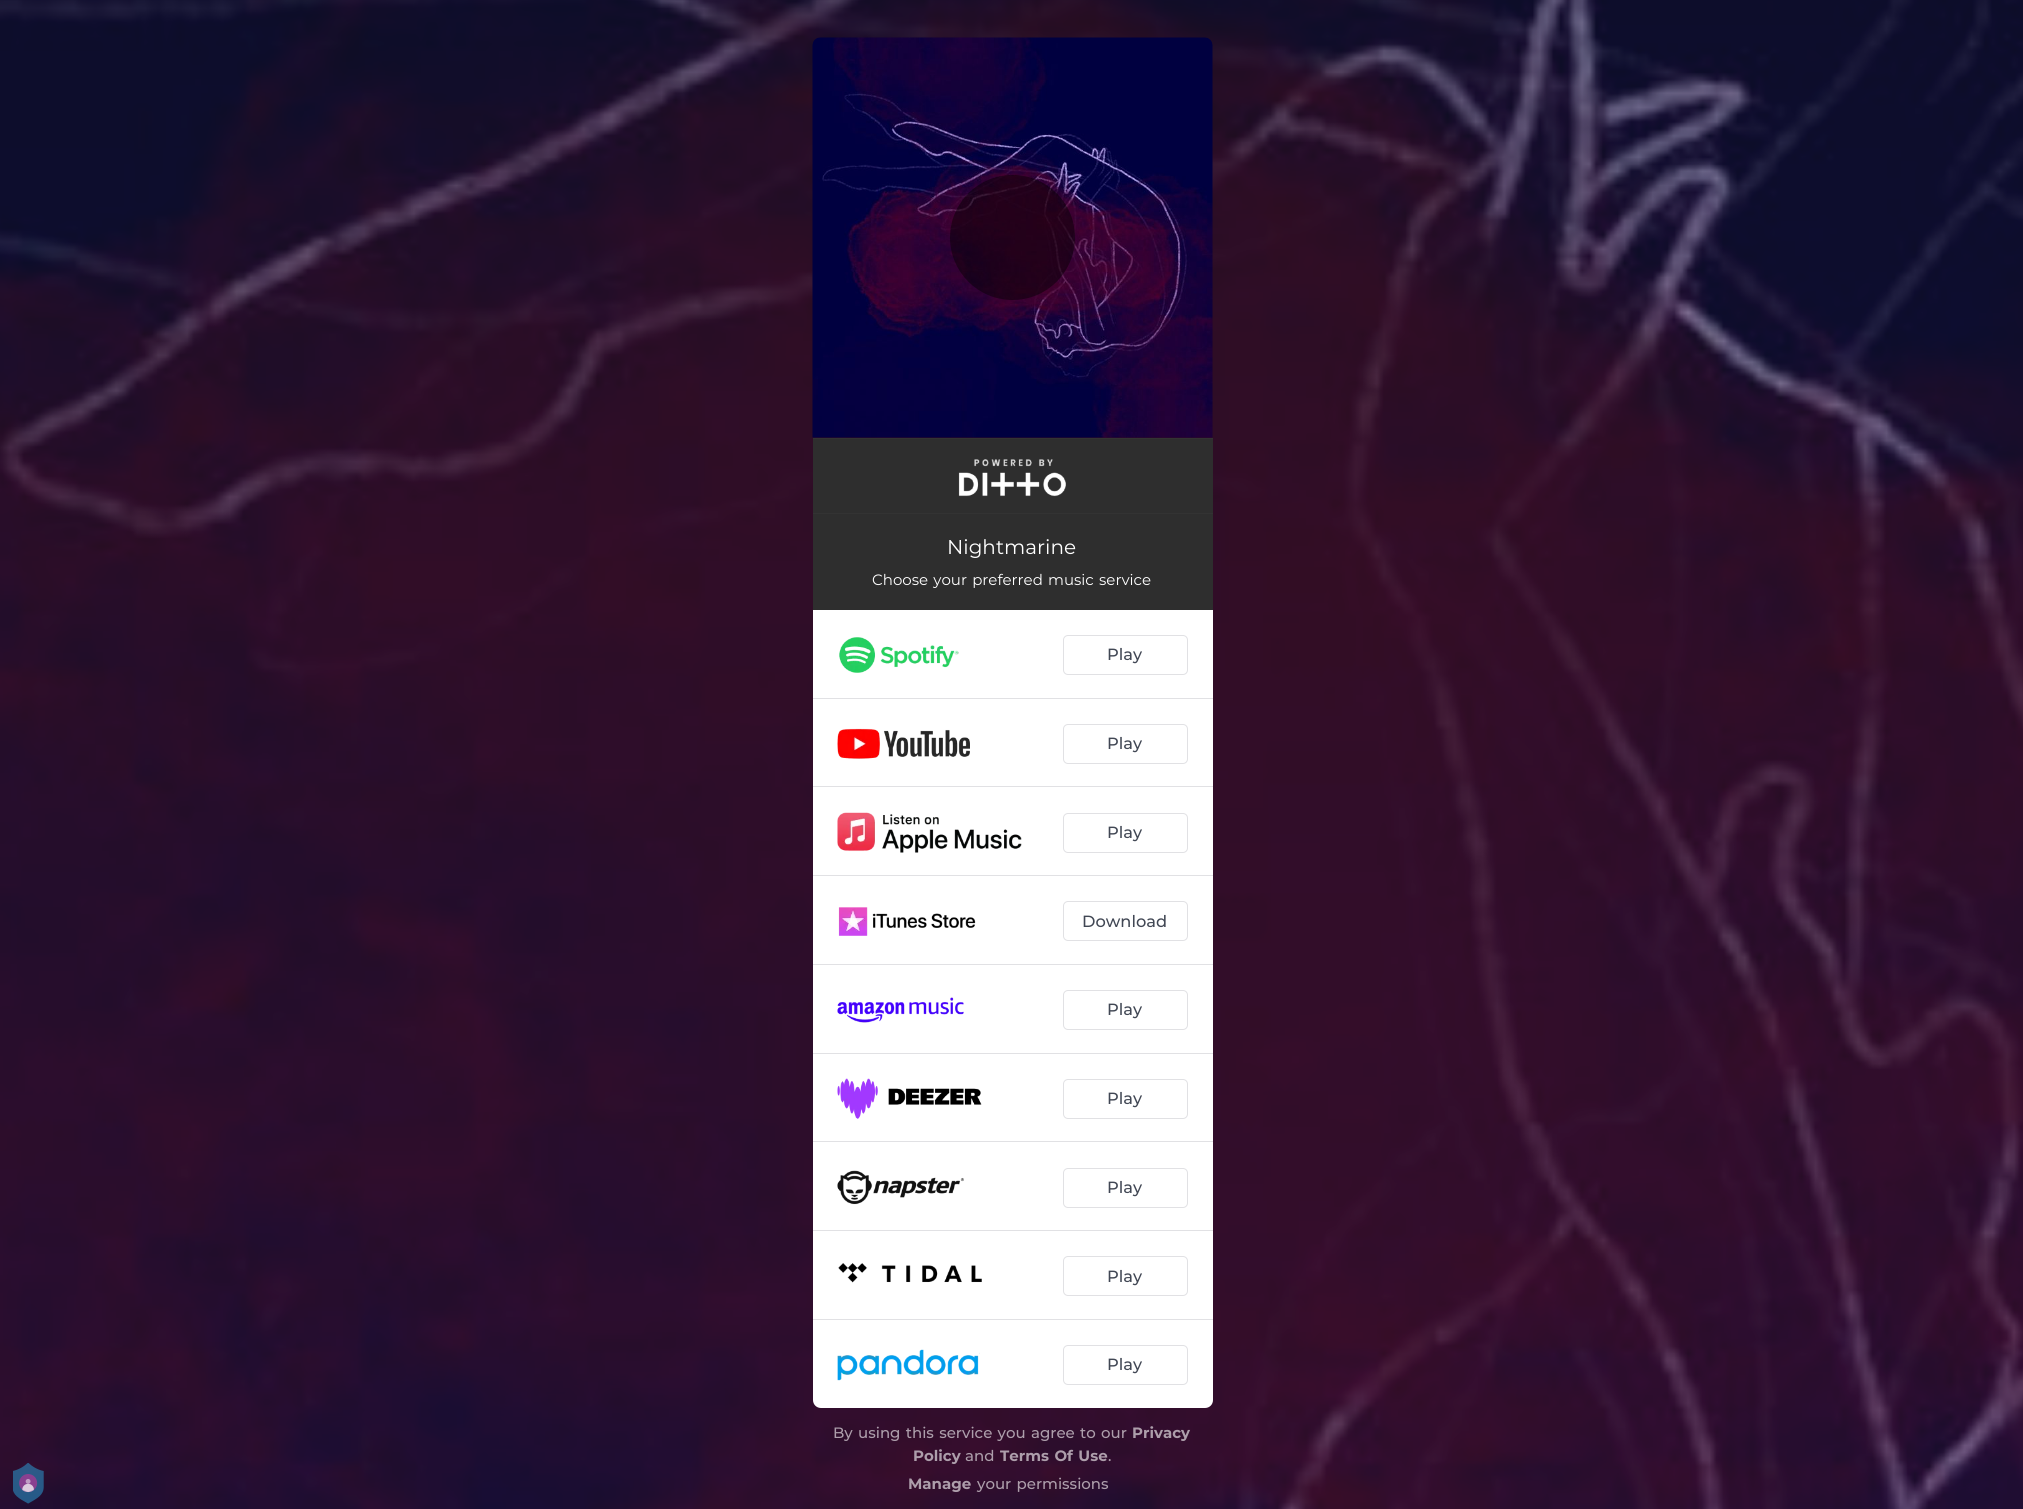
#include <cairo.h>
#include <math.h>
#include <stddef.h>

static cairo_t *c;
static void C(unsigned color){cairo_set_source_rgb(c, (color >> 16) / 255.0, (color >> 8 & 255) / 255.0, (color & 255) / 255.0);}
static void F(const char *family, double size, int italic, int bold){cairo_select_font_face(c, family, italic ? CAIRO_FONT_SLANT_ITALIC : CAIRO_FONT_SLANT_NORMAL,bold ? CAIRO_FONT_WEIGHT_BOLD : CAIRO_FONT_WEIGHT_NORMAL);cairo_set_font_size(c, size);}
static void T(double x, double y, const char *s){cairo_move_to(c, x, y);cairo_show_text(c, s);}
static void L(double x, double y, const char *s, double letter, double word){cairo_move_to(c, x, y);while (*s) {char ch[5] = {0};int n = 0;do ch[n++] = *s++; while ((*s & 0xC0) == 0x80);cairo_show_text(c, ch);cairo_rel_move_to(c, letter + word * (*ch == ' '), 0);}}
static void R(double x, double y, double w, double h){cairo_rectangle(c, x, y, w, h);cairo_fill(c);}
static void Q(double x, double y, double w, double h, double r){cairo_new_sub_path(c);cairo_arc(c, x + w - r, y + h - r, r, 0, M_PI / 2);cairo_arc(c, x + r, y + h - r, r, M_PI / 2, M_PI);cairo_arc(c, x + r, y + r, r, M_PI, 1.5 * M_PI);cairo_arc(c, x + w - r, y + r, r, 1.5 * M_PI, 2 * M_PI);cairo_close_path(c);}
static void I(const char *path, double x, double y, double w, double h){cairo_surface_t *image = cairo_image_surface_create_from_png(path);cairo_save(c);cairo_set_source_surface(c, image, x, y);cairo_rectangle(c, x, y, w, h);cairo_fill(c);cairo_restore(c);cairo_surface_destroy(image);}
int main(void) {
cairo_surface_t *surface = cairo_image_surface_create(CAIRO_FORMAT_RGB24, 2023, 1509);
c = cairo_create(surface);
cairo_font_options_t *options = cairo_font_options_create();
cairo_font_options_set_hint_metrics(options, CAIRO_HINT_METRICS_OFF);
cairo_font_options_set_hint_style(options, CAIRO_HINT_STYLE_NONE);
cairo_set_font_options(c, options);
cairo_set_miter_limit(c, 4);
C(0xffffff);
cairo_paint(c);
I("2.png",0,0,2023,1509);
I("1.png",13,1463,31,41);
I("3.png",812,37,401,401);
cairo_set_source_rgba(c,0,0,0,0.45);
cairo_arc(c,1012.5,237.5,62.5,0,2 * M_PI);
cairo_fill(c);
C(0x2e2e2e);
R(813,439,400,74);
C(0x333333);
R(813,438,400,1);
R(813,513,400,1);
I("4.png",958,459,108,38);
C(0x2e2e2e);
R(813,514,400,96);
F("Montserrat",20,0,0);
C(0xffffff);
T(947,554,"Nightmarine");
F("Montserrat",15,0,0);
L(872,585,"Choose your preferred music service",0,1.25);
cairo_new_path(c);
cairo_move_to(c,813,610);
cairo_line_to(c,1213,610);
cairo_line_to(c,1213,1400);
cairo_curve_to(c,1213,1404.5,1209.5,1408,1205,1408);
cairo_line_to(c,821,1408);
cairo_curve_to(c,816.5,1408,813,1404.5,813,1400);
cairo_close_path(c);
cairo_fill(c);
C(0xe1e1e4);
R(813,698,400,1);
I("5.png",839,637,120,36);
Q(1063.5,635.5,124,39,4.5);
cairo_set_line_width(c,1);
cairo_stroke(c);
F("Montserrat Medium",16.25,0,0);
C(0x414754);
T(1107,660,"Play");
C(0xe1e1e4);
R(813,786,400,1);
I("6.png",837,728,133,31);
Q(1063.5,724.5,124,39,4.5);
cairo_stroke(c);
C(0x414754);
T(1107,749,"Play");
C(0xe1e1e4);
R(813,875,400,1);
I("7.png",837,812,185,41);
Q(1063.5,813.5,124,39,4.5);
cairo_stroke(c);
C(0x414754);
T(1107,838,"Play");
C(0xe1e1e4);
R(813,964,400,1);
I("8.png",838,907,138,29);
Q(1063.5,901.5,124,39,4.5);
cairo_stroke(c);
C(0x414754);
T(1082,927,"Download");
C(0xe1e1e4);
R(813,1053,400,1);
I("9.png",837,997,127,26);
Q(1063.5,990.5,124,39,4.5);
cairo_stroke(c);
C(0x414754);
T(1107,1015,"Play");
C(0xe1e1e4);
R(813,1141,400,1);
I("10.png",837,1078,145,41);
Q(1063.5,1079.5,124,39,4.5);
cairo_stroke(c);
C(0x414754);
T(1107,1104,"Play");
C(0xe1e1e4);
R(813,1230,400,1);
I("11.png",837,1170,127,35);
Q(1063.5,1168.5,124,39,4.5);
cairo_stroke(c);
C(0x414754);
T(1107,1193,"Play");
C(0xe1e1e4);
R(813,1319,400,1);
I("12.png",838,1263,144,20);
Q(1063.5,1256.5,124,39,4.5);
cairo_stroke(c);
C(0x414754);
T(1107,1282,"Play");
I("13.png",837,1349,143,32);
Q(1063.5,1345.5,124,39,4.5);
C(0xe1e1e4);
cairo_stroke(c);
C(0x414754);
T(1107,1370,"Play");
F("Montserrat Medium",15,0,0);
C(0xad9eab);
L(833,1438,"By using this service you agree to our",0,1.25);
F("Montserrat",15,0,1);
T(1132,1438,"Privacy");
T(913,1461,"Policy");
F("Montserrat Medium",15,0,0);
T(965,1461,"and");
F("Montserrat",15,0,1);
L(1000,1461,"Terms Of Use",0,1.25);
F("Montserrat Medium",15,0,0);
T(1108,1461,".");
F("Montserrat",15,0,1);
T(908,1489,"Manage");
F("Montserrat Medium",15,0,0);
L(977,1489,"your permissions",0,1.25);
cairo_surface_write_to_png(surface, "o.png");
cairo_font_options_destroy(options);
cairo_destroy(c);
cairo_surface_destroy(surface);
return 0;
}
